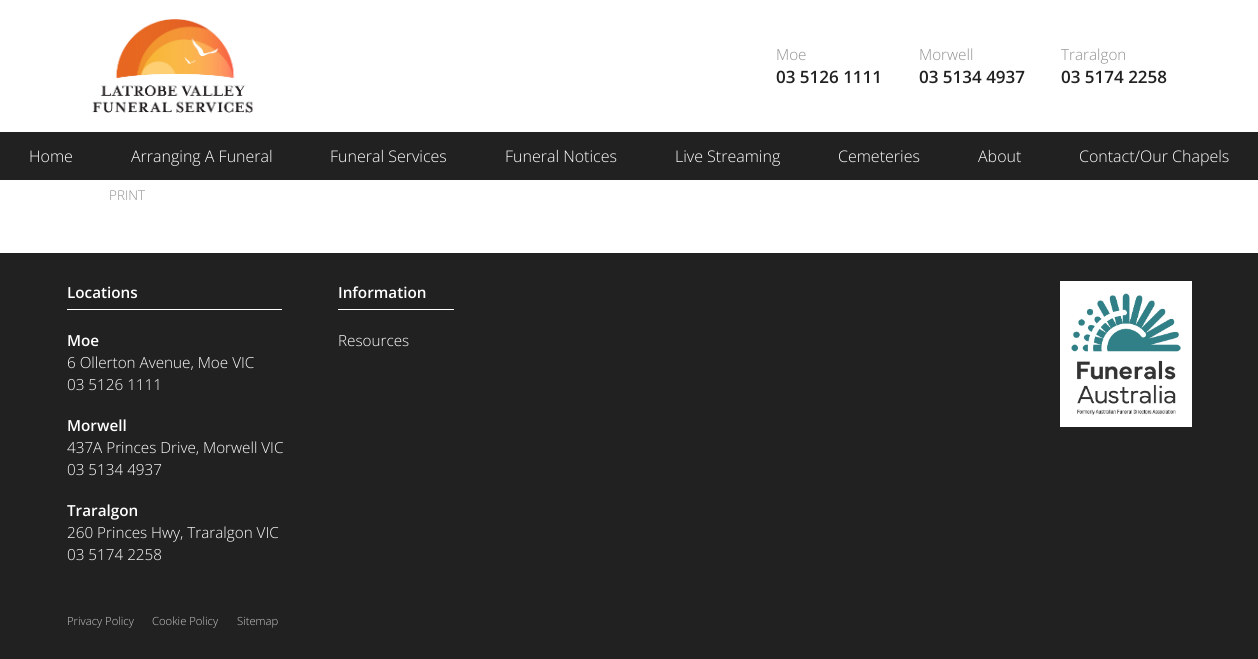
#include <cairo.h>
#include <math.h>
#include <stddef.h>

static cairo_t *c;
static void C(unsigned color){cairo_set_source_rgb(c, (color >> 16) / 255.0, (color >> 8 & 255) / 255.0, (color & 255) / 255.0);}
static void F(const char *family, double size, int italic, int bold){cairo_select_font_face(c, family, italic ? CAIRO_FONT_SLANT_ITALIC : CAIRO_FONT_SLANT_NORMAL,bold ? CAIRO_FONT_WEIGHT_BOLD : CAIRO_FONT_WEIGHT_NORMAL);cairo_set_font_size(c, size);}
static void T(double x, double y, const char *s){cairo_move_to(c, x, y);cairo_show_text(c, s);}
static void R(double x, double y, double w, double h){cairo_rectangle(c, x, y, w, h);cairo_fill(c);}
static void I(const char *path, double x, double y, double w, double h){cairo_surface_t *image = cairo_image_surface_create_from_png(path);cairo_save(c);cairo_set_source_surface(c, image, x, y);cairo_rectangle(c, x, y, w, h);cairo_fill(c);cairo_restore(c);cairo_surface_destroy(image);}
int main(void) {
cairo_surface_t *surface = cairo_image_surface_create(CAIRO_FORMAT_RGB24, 1258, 659);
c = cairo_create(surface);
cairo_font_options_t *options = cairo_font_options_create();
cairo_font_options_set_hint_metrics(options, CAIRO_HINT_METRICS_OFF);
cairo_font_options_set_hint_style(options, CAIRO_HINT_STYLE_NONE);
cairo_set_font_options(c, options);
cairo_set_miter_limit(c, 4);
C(0xffffff);
cairo_paint(c);
I("1.png",92,19,161,94);
F("Open Sans Light",15.25,0,0);
C(0x909090);
T(776,60,"Moe");
F("Open Sans SemiBold",17,0,0);
C(0x212121);
T(776,83,"03 5126 1111");
F("Open Sans Light",15.25,0,0);
C(0x909090);
T(919,60,"Morwell");
F("Open Sans SemiBold",17,0,0);
C(0x212121);
T(919,83,"03 5134 4937");
F("Open Sans Light",15.25,0,0);
C(0x909090);
T(1061,60,"Traralgon");
F("Open Sans SemiBold",17,0,0);
C(0x212121);
T(1061,83,"03 5174 2258");
R(0,132,1258,48);
F("Open Sans Light",16,0,0);
C(0xffffff);
T(29,162,"Home");
T(131,162,"Arranging A Funeral");
T(330,162,"Funeral Services");
T(505,162,"Funeral Notices");
T(675,162,"Live Streaming");
T(838,162,"Cemeteries");
T(978,162,"About");
T(1079,162,"Contact/Our Chapels");
F("Open Sans Light",13.5,0,0);
C(0x909090);
T(109,200,"PRINT");
C(0x212121);
R(0,253,1258,406);
C(0xffffff);
R(67,309,215,1);
F("Open Sans SemiBold",15.25,0,0);
T(67,298,"Locations");
T(67,346,"Moe");
F("Open Sans Light",15.25,0,0);
T(67,368,"6 Ollerton Avenue, Moe VIC");
T(67,390,"03 5126 1111");
F("Open Sans SemiBold",15.25,0,0);
T(67,431,"Morwell");
F("Open Sans Light",15.25,0,0);
T(67,453,"437A Princes Drive, Morwell VIC");
T(67,475,"03 5134 4937");
F("Open Sans SemiBold",15.25,0,0);
T(67,516,"Traralgon");
F("Open Sans Light",15.25,0,0);
T(67,538,"260 Princes Hwy, Traralgon VIC");
T(67,560,"03 5174 2258");
R(338,309,116,1);
F("Open Sans SemiBold",15.25,0,0);
T(338,298,"Information");
F("Open Sans Light",15.25,0,0);
T(338,346,"Resources");
I("2.png",1060,281,132,146);
F("Open Sans Light",11.25,0,0);
C(0xc8c8c8);
T(67,625,"Privacy Policy");
T(152,625,"Cookie Policy");
T(237,625,"Sitemap");
cairo_surface_write_to_png(surface, "o.png");
cairo_font_options_destroy(options);
cairo_destroy(c);
cairo_surface_destroy(surface);
return 0;
}
